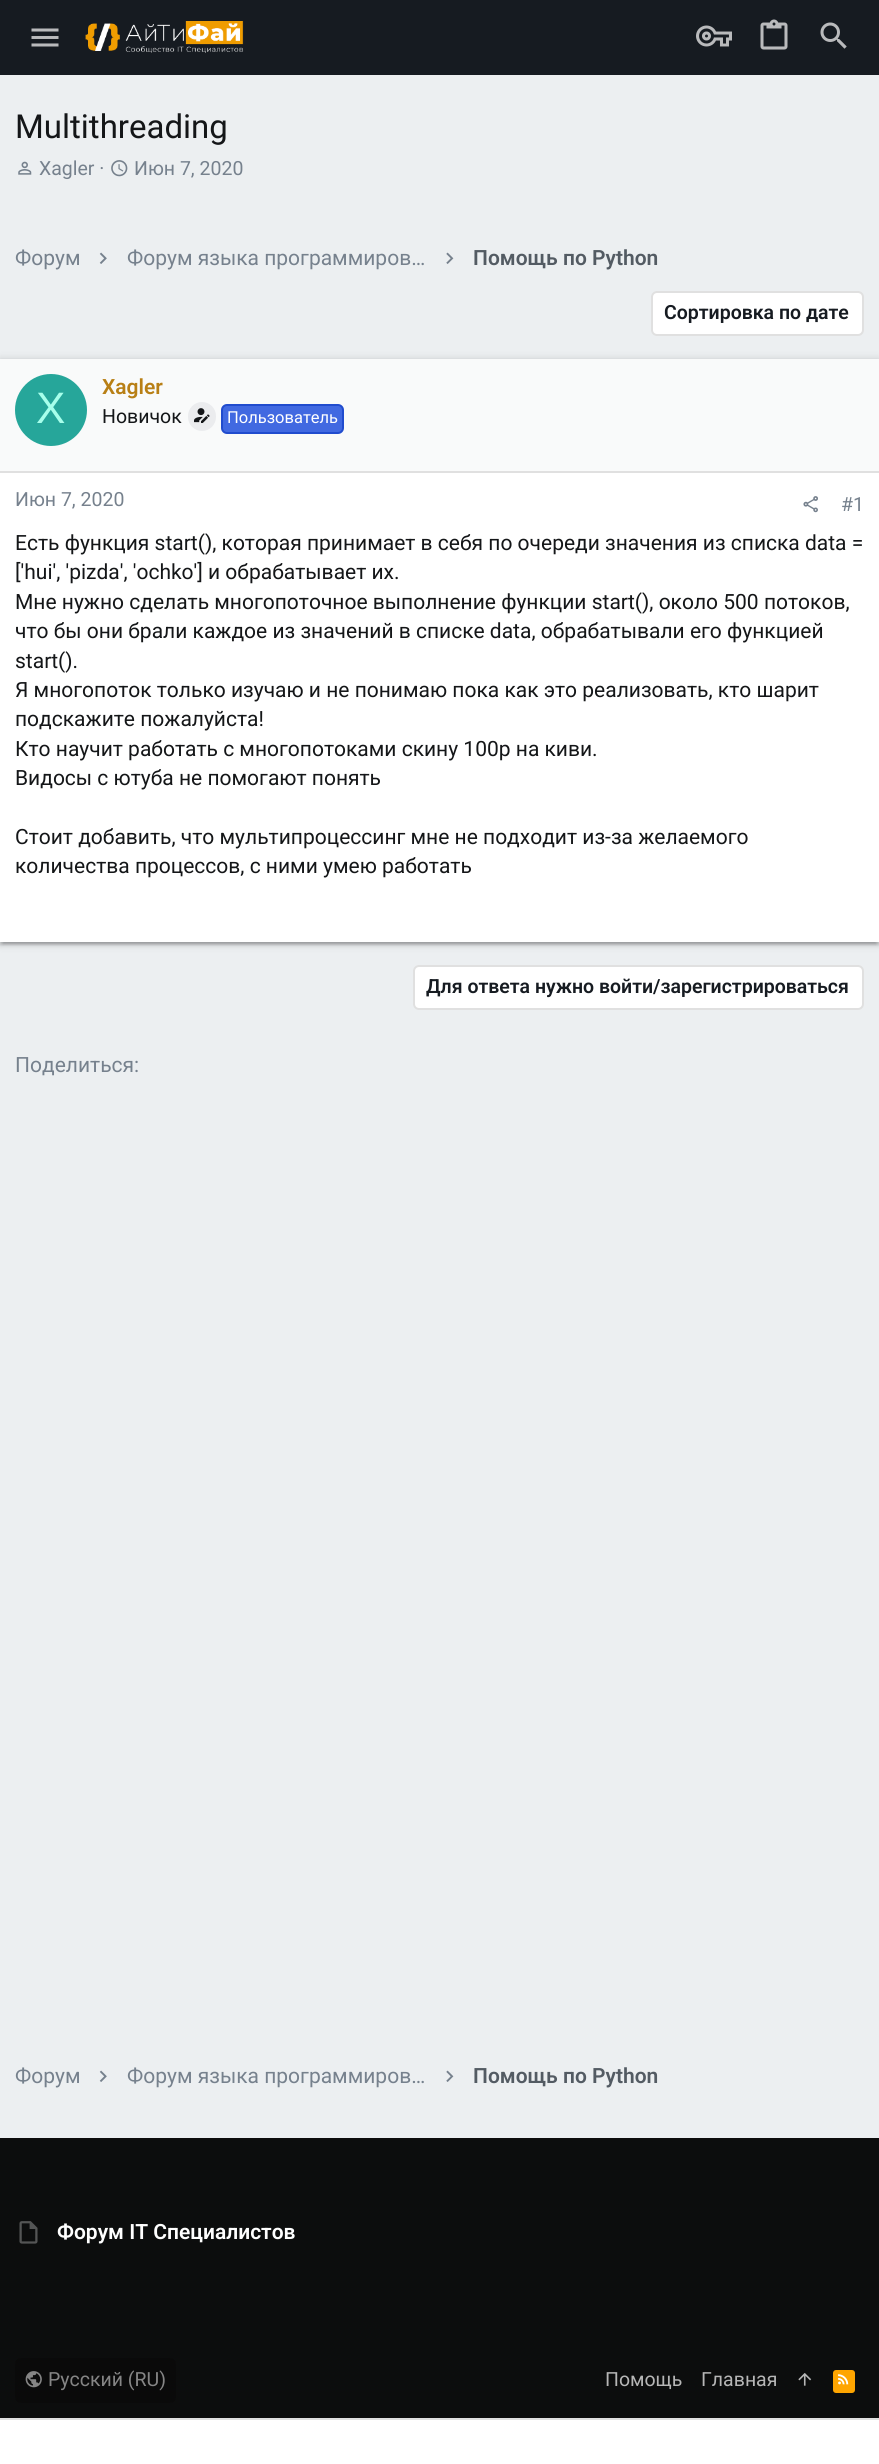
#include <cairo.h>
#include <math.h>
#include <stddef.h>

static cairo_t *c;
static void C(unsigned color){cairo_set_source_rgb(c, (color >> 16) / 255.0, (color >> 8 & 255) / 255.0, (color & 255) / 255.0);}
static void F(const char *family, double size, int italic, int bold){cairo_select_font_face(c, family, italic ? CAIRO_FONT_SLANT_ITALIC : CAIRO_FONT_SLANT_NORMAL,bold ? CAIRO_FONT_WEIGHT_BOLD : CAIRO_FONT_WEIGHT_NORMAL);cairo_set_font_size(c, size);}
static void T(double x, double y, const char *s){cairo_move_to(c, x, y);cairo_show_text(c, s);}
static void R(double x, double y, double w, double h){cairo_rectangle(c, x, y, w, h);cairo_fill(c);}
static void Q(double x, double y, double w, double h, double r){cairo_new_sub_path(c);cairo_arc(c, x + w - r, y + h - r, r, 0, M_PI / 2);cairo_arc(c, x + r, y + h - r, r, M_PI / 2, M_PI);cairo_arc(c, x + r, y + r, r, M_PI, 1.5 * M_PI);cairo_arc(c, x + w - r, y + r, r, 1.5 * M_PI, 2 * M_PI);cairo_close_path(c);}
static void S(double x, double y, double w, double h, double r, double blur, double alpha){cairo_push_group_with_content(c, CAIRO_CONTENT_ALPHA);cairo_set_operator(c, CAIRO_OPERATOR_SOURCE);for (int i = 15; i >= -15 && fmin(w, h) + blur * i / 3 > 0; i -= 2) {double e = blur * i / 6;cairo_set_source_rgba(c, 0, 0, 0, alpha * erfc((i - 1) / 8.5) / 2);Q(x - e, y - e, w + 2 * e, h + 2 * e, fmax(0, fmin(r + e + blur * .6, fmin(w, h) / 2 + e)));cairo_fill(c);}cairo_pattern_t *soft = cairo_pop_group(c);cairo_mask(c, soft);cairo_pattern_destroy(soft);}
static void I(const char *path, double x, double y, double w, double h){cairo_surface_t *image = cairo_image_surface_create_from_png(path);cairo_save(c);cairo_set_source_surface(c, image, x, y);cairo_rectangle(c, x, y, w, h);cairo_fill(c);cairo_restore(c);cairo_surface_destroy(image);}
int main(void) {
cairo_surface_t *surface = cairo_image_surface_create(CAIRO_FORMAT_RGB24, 879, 2464);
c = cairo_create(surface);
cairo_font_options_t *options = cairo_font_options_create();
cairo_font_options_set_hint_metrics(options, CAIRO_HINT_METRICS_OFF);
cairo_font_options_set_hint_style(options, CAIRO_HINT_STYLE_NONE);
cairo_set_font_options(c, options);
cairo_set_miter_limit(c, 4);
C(0xeceff1);
cairo_paint(c);
C(0x161b21);
R(0,0,879,75);
I("1.png",31,28,28,19);
I("2.png",85,21,159,32);
I("3.png",696,25,36,22);
I("4.png",760,19,28,31);
I("5.png",820,22,27,27);
F("Roboto",33,0,0);
C(0x141618);
T(15,138,"Multithreading");
I("6.png",18,161,14,14);
F("Roboto",19.5,0,0);
C(0x76818d);
T(39,175,"Xagler ·");
I("7.png",111,160,17,17);
T(134,175,"Июн 7, 2020");
F("Roboto",21,0,0);
T(15,265,"Форум");
I("8.png",99,252,8,12);
T(127,265,"Форум языка программиров…");
I("9.png",446,252,8,12);
F("Roboto SemiBold",21,0,0);
C(0x535b63);
T(473,265,"Помощь по Python");
C(0xffffff);
Q(652,292,211,43,5);
cairo_fill_preserve(c);
C(0xe0e0e0);
cairo_stroke(c);
F("Roboto SemiBold",19.5,0,0);
C(0x161b21);
T(664,319,"Сортировка по дате");
C(0x000000);
S(0,360,879,584,0,4,.2);
S(3,366,873,578,0,1,.12);
S(0,362,879,583,0,1.5,.14);
C(0xffffff);
R(0,473,879,469);
C(0xf9fafa);
R(0,359,879,112);
C(0xe0e0e0);
R(0,471,879,2);
C(0x26a69a);
cairo_arc(c,51,410,36,0,2 * M_PI);
cairo_fill(c);
F("Liberation Sans",44,0,0);
C(0xa7ffeb);
T(36,423,"X");
F("Roboto SemiBold",21,0,0);
C(0xb87f15);
T(102,394,"Xagler");
F("Roboto",19.5,0,0);
C(0x141618);
T(102,423,"Новичок");
C(0xebecee);
Q(188,402,28,29,14);
cairo_fill(c);
I("10.png",194,408,16,15);
C(0x4169e1);
Q(222,405,121,28,5);
cairo_fill_preserve(c);
C(0x214cce);
cairo_stroke(c);
F("Roboto",16.5,0,0);
C(0xffffff);
T(227,423,"Пользователь");
F("Roboto",19.5,0,0);
C(0x76818d);
T(15,506,"Июн 7, 2020");
I("11.png",803,496,15,17);
T(841,511,"#1");
F("Roboto",21,0,0);
C(0x141618);
T(15,550,"Есть функция start(), которая принимает в себя по очереди значения из списка data =");
T(15,579,"['hui', 'pizda', 'ochko'] и обрабатывает их.");
T(15,609,"Мне нужно сделать многопоточное выполнение функции start(), около 500 потоков,");
T(15,638,"что бы они брали каждое из значений в списке data, обрабатывали его функцией");
T(15,668,"start().");
T(15,697,"Я многопоток только изучаю и не понимаю пока как это реализовать, кто шарит");
T(15,726,"подскажите пожалуйста!");
T(15,756,"Кто научит работать с многопотоками скину 100р на киви.");
T(15,785,"Видосы с ютуба не помогают понять");
T(15,844,"Стоит добавить, что мультипроцессинг мне не подходит из-за желаемого");
T(15,873,"количества процессов, с ними умею работать");
C(0xffffff);
Q(414,966,449,43,5);
cairo_fill_preserve(c);
C(0xe0e0e0);
cairo_stroke(c);
F("Roboto SemiBold",19.5,0,0);
C(0x161b21);
T(426,993,"Для ответа нужно войти/зарегистрироваться");
F("Roboto",21,0,0);
C(0x76818d);
T(15,1072,"Поделиться:");
T(15,2083,"Форум");
I("8.png",99,2070,8,12);
T(127,2083,"Форум языка программиров…");
I("9.png",446,2070,8,12);
F("Roboto SemiBold",21,0,0);
C(0x535b63);
T(473,2083,"Помощь по Python");
C(0x0c0d0d);
R(0,2138,879,280);
I("12.png",19,2221,19,23);
C(0xffffff);
T(57,2239,"Форум IT Специалистов");
C(0x0a0a0a);
Q(15,2358,161,45,6);
cairo_fill(c);
I("13.png",25,2371,17,17);
F("Roboto",19.5,0,0);
C(0x858585);
T(48,2386,"Русский (RU)");
C(0xb6b6b6);
T(605,2386,"Помощь");
T(701,2386,"Главная");
I("14.png",798,2373,14,13);
C(0xffa500);
Q(833,2370,22,23,3);
cairo_fill(c);
I("15.png",838,2374,11,11);
C(0xffffff);
R(0,2420,879,44);
C(0xe0e0e0);
R(0,2418,879,2);
cairo_surface_write_to_png(surface, "o.png");
cairo_font_options_destroy(options);
cairo_destroy(c);
cairo_surface_destroy(surface);
return 0;
}
